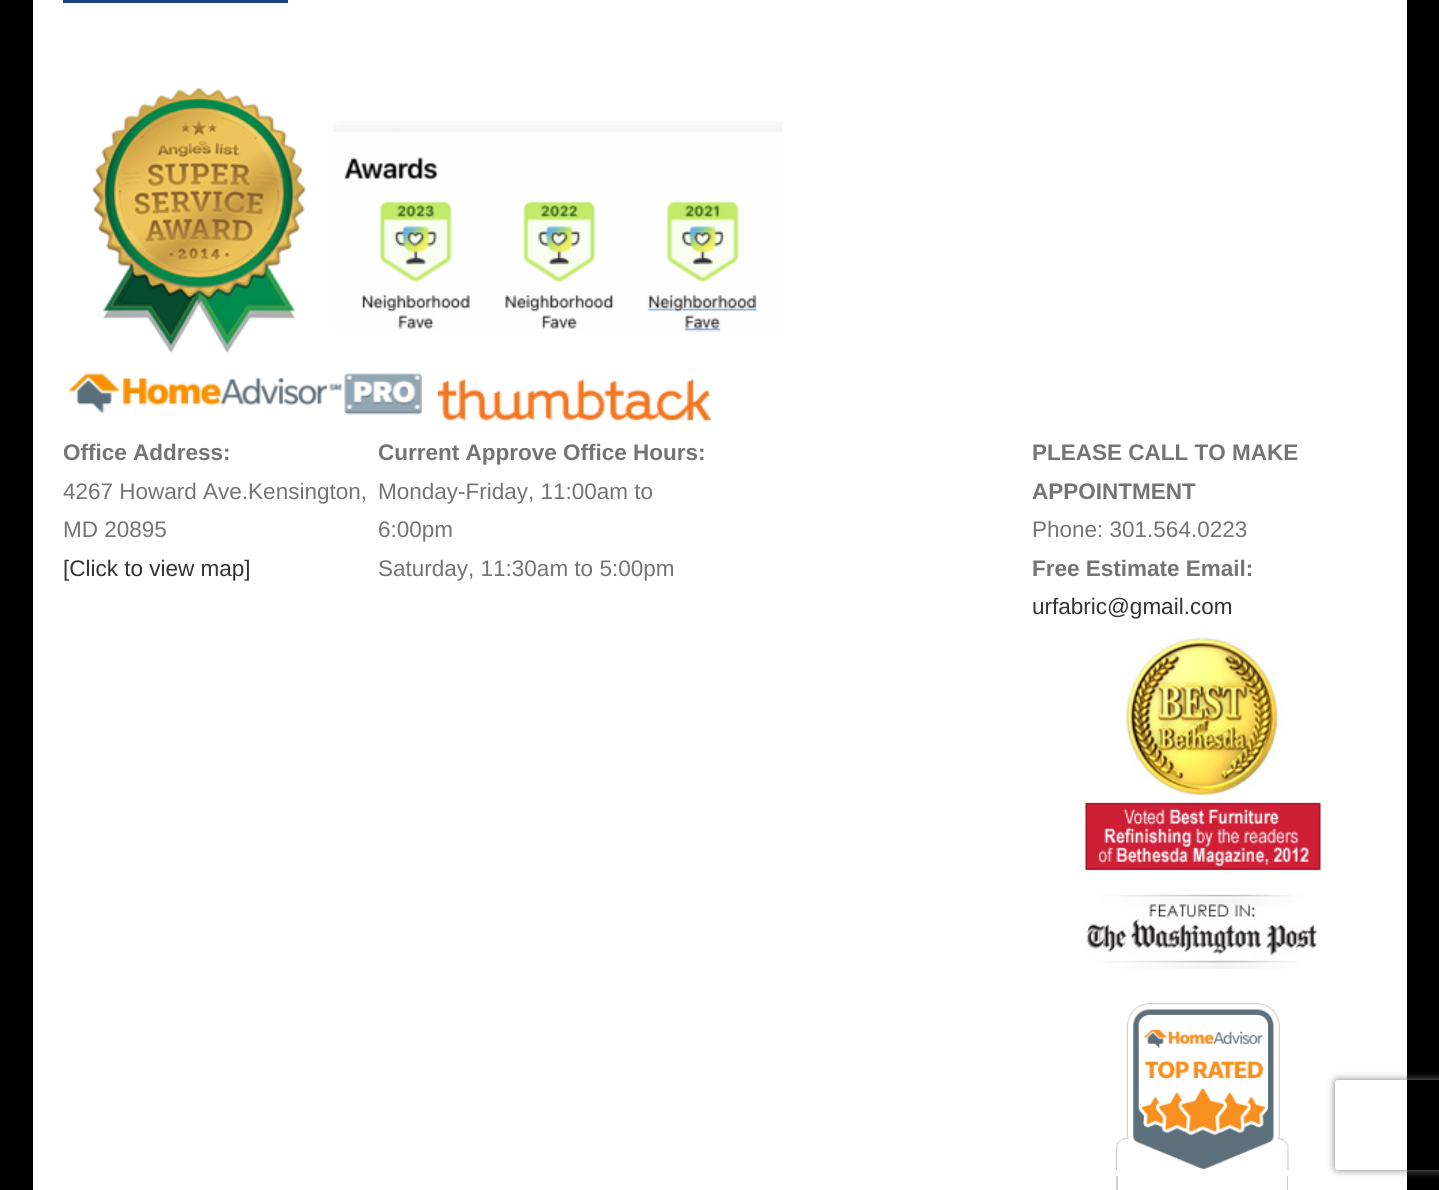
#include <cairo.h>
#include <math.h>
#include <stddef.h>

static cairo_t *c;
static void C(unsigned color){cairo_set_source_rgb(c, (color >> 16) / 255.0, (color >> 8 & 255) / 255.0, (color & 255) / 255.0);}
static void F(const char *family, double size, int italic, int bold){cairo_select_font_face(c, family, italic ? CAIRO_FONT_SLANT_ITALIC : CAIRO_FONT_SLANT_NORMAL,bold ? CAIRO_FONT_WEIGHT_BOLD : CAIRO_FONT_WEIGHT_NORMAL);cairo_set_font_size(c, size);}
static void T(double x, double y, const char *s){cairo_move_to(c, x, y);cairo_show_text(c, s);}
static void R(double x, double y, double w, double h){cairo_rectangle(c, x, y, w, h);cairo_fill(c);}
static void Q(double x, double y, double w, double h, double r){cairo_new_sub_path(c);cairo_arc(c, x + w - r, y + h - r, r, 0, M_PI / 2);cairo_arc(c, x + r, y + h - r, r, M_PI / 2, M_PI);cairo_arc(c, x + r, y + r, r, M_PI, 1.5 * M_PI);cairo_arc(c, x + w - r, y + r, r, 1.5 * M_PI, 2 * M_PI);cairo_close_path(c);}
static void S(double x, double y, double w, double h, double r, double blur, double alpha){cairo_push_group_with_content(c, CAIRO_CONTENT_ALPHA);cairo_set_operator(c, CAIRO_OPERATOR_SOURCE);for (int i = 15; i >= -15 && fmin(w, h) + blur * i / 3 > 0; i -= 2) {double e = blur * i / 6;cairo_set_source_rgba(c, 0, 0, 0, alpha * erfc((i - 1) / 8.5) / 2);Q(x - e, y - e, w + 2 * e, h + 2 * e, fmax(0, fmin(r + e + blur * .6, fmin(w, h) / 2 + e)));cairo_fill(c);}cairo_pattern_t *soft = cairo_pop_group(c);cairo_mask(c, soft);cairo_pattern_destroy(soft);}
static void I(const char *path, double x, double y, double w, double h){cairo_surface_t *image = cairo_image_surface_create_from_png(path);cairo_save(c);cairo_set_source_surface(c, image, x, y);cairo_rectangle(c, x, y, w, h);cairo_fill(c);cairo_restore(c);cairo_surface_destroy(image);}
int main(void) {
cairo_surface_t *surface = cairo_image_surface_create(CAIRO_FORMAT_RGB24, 1439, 1190);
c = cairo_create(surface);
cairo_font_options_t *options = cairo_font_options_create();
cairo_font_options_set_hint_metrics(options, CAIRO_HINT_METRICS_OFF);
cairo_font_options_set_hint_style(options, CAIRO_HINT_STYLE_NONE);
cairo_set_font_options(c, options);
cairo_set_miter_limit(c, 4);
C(0x000000);
cairo_paint(c);
C(0xffffff);
R(33,0,1374,1190);
I("1.png",63,0,225,3);
I("2.png",92,88,215,265);
I("3.png",333,121,450,211);
I("4.png",68,373,354,42);
I("5.png",438,379,273,42);
F("Liberation Sans",22.5,0,1);
C(0x747474);
T(63,460,"Office Address:");
F("Liberation Sans",22.5,0,0);
T(63,499,"4267 Howard Ave.Kensington,");
T(63,537,"MD 20895");
C(0x333333);
T(63,576,"[Click to view map]");
F("Liberation Sans",22.5,0,1);
C(0x747474);
T(378,460,"Current Approve Office Hours:");
F("Liberation Sans",22.5,0,0);
T(378,499,"Monday-Friday, 11:00am to");
T(378,537,"6:00pm");
T(378,576,"Saturday, 11:30am to 5:00pm");
F("Liberation Sans",22.5,0,1);
T(1032,460,"PLEASE CALL TO MAKE");
T(1032,499,"APPOINTMENT");
F("Liberation Sans",22.5,0,0);
T(1032,537,"Phone: 301.564.0223");
F("Liberation Sans",22.5,0,1);
T(1032,576,"Free Estimate Email:");
F("Liberation Sans",22.5,0,0);
C(0x333333);
T(1032,614,"urfabric@gmail.com");
I("6.png",1080,637,245,240);
I("7.png",1086,894,233,75);
I("8.png",1116,1003,173,167);
C(0xcccccc);
cairo_set_fill_rule(c,CAIRO_FILL_RULE_EVEN_ODD);
cairo_new_path(c);
cairo_move_to(c,1116,1176);
cairo_line_to(c,1288,1176);
cairo_line_to(c,1288,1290);
cairo_curve_to(c,1288,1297,1282,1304,1275,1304);
cairo_line_to(c,1130,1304);
cairo_curve_to(c,1122,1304,1116,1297,1116,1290);
cairo_close_path(c);
cairo_move_to(c,1118,1176);
cairo_line_to(c,1287,1176);
cairo_line_to(c,1287,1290);
cairo_curve_to(c,1287,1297,1282,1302,1275,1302);
cairo_line_to(c,1130,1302);
cairo_curve_to(c,1123,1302,1118,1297,1118,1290);
cairo_close_path(c);
cairo_fill(c);
cairo_save(c);
cairo_new_path(c);
cairo_move_to(c,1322,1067);
cairo_line_to(c,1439,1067);
cairo_line_to(c,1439,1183);
cairo_line_to(c,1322,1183);
cairo_close_path(c);
cairo_move_to(c,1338,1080);
cairo_line_to(c,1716,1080);
cairo_curve_to(c,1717.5,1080,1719,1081.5,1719,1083);
cairo_line_to(c,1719,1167);
cairo_curve_to(c,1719,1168.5,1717.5,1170,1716,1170);
cairo_line_to(c,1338,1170);
cairo_curve_to(c,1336.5,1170,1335,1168.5,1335,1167);
cairo_line_to(c,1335,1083);
cairo_curve_to(c,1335,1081.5,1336.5,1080,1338,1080);
cairo_close_path(c);
cairo_clip(c);
C(0x808080);
S(1335,1080,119,90,3,4,1);
cairo_restore(c);
cairo_surface_write_to_png(surface, "o.png");
cairo_font_options_destroy(options);
cairo_destroy(c);
cairo_surface_destroy(surface);
return 0;
}
